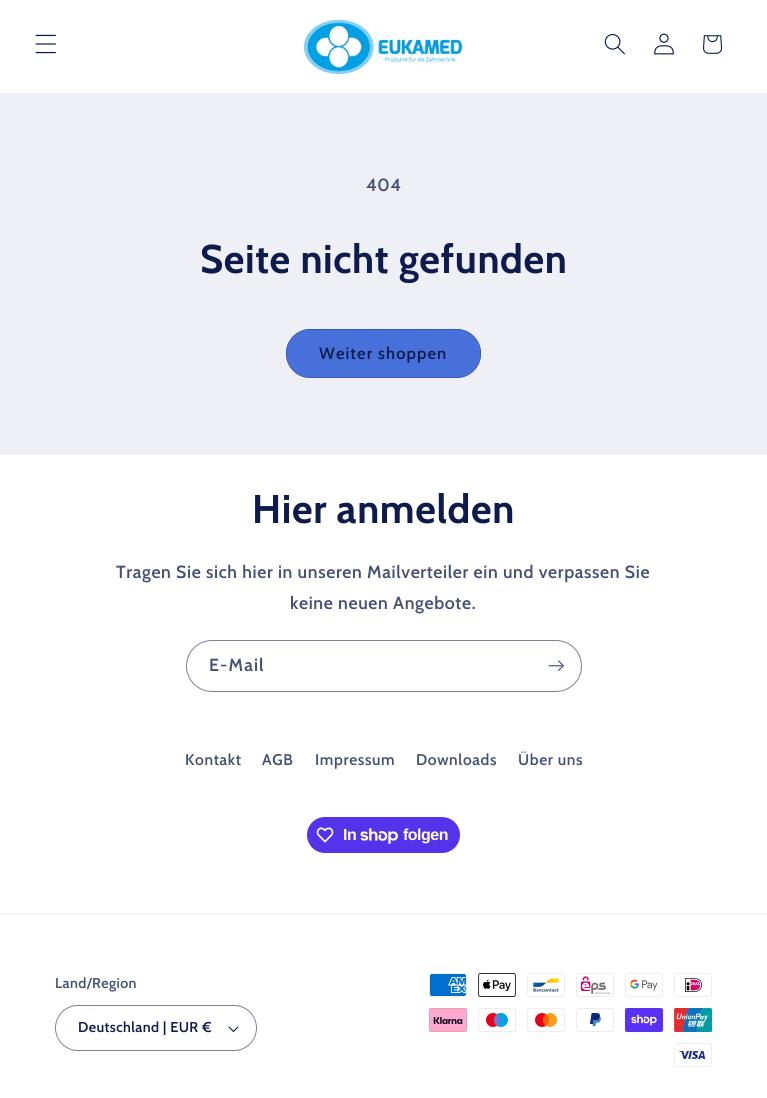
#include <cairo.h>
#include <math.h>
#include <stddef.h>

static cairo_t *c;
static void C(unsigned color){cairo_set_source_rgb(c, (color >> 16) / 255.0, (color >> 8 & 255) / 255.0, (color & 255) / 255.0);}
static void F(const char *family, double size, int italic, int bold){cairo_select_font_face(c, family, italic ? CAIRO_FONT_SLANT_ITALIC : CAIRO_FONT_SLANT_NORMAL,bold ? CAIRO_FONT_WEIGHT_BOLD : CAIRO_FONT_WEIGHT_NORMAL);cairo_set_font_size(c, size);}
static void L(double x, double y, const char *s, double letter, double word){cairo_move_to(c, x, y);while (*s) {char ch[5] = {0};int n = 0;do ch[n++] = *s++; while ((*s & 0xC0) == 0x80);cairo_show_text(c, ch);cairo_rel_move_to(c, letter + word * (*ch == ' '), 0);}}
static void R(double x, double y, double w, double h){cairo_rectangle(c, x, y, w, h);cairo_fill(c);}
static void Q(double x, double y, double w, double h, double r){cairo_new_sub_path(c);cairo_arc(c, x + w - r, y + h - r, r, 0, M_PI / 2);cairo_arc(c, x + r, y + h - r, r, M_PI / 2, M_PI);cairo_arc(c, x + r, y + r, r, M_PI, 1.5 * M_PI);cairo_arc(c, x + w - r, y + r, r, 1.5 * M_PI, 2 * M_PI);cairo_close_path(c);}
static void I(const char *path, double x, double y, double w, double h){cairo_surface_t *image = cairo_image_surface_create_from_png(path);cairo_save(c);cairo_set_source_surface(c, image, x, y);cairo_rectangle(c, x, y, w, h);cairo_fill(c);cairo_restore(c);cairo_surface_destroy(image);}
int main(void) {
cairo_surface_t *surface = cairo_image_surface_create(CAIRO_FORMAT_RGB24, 767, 1098);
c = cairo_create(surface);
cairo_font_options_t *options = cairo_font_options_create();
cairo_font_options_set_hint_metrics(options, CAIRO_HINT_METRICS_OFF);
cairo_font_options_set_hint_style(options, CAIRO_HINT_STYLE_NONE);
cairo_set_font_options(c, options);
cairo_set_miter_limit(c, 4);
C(0xeff0f5);
cairo_paint(c);
C(0xffffff);
R(0,0,767,93);
I("1.png",35,34,21,20);
I("2.png",304,14,160,60);
I("3.png",604,33,21,22);
I("4.png",654,33,20,22);
I("5.png",703,35,20,19);
F("Cabin SemiBold",17.6,0,0);
C(0x465077);
L(366,191,"404",.65,0);
F("Cabin",40,0,1);
C(0x0e1b4d);
L(200,273,"Seite nicht gefunden",.6,0);
C(0x4770db);
Q(286,329,195,49,24.5);
cairo_fill(c);
Q(286.15,329.15,194.7,48.7,24.35);
C(0x0e1b4d);
cairo_set_line_width(c,.3);
cairo_stroke(c);
F("Cabin SemiBold",16.5,0,0);
L(319,359,"Weiter shoppen",1.1,0);
C(0xffffff);
R(0,455,767,643);
F("Cabin",40,0,1);
C(0x0e1b4d);
L(252,523,"Hier anmelden",.6,0);
F("Cabin SemiBold",17.6,0,0);
C(0x465077);
L(116,578,"Tragen Sie sich hier in unseren Mailverteiler ein und verpassen Sie",.65,0);
L(290,609,"keine neuen Angebote.",.65,0);
Q(186.5,640.5,395,51,25.5);
C(0x7a829d);
cairo_set_line_width(c,1);
cairo_stroke(c);
C(0x465077);
L(209,671,"E-Mail",1.1,0);
I("6.png",548,660,16,11);
F("Cabin SemiBold",15.5,0,0);
L(185,765,"Kontakt",.65,0);
L(262,765,"AGB",.65,0);
L(315,765,"Impressum",.65,0);
L(416,765,"Downloads",.65,0);
L(518,765,"Über uns",.65,0);
C(0x5433eb);
Q(307,817,153,36,18);
cairo_fill(c);
I("7.png",316,827,18,16);
F("Liberation Sans",16,0,1);
C(0xffffff);
L(343,840,"In",-.5,0);
I("8.png",360,828,38,16);
L(403,840,"folgen",-.5,0);
C(0xecedf1);
R(0,913,767,1);
F("Cabin SemiBold",14.25,0,0);
C(0x465077);
L(55,988,"Land/Region",.4,0);
I("9.png",228,1026,11,6);
Q(55.5,1005.5,201,45,22.5);
C(0x7a829d);
cairo_stroke(c);
C(0x0e1b4d);
L(78,1032,"Deutschland | EUR €",.4,0);
I("10.png",429,973,38,24);
I("11.png",478,973,38,24);
I("12.png",527,973,38,24);
I("13.png",576,973,38,24);
I("14.png",625,973,38,24);
I("15.png",674,973,38,24);
I("16.png",429,1008,38,24);
I("17.png",478,1008,38,24);
I("18.png",527,1008,38,24);
I("19.png",576,1008,38,24);
I("20.png",625,1008,38,24);
I("21.png",674,1008,38,24);
I("22.png",674,1043,38,24);
cairo_surface_write_to_png(surface, "o.png");
cairo_font_options_destroy(options);
cairo_destroy(c);
cairo_surface_destroy(surface);
return 0;
}
